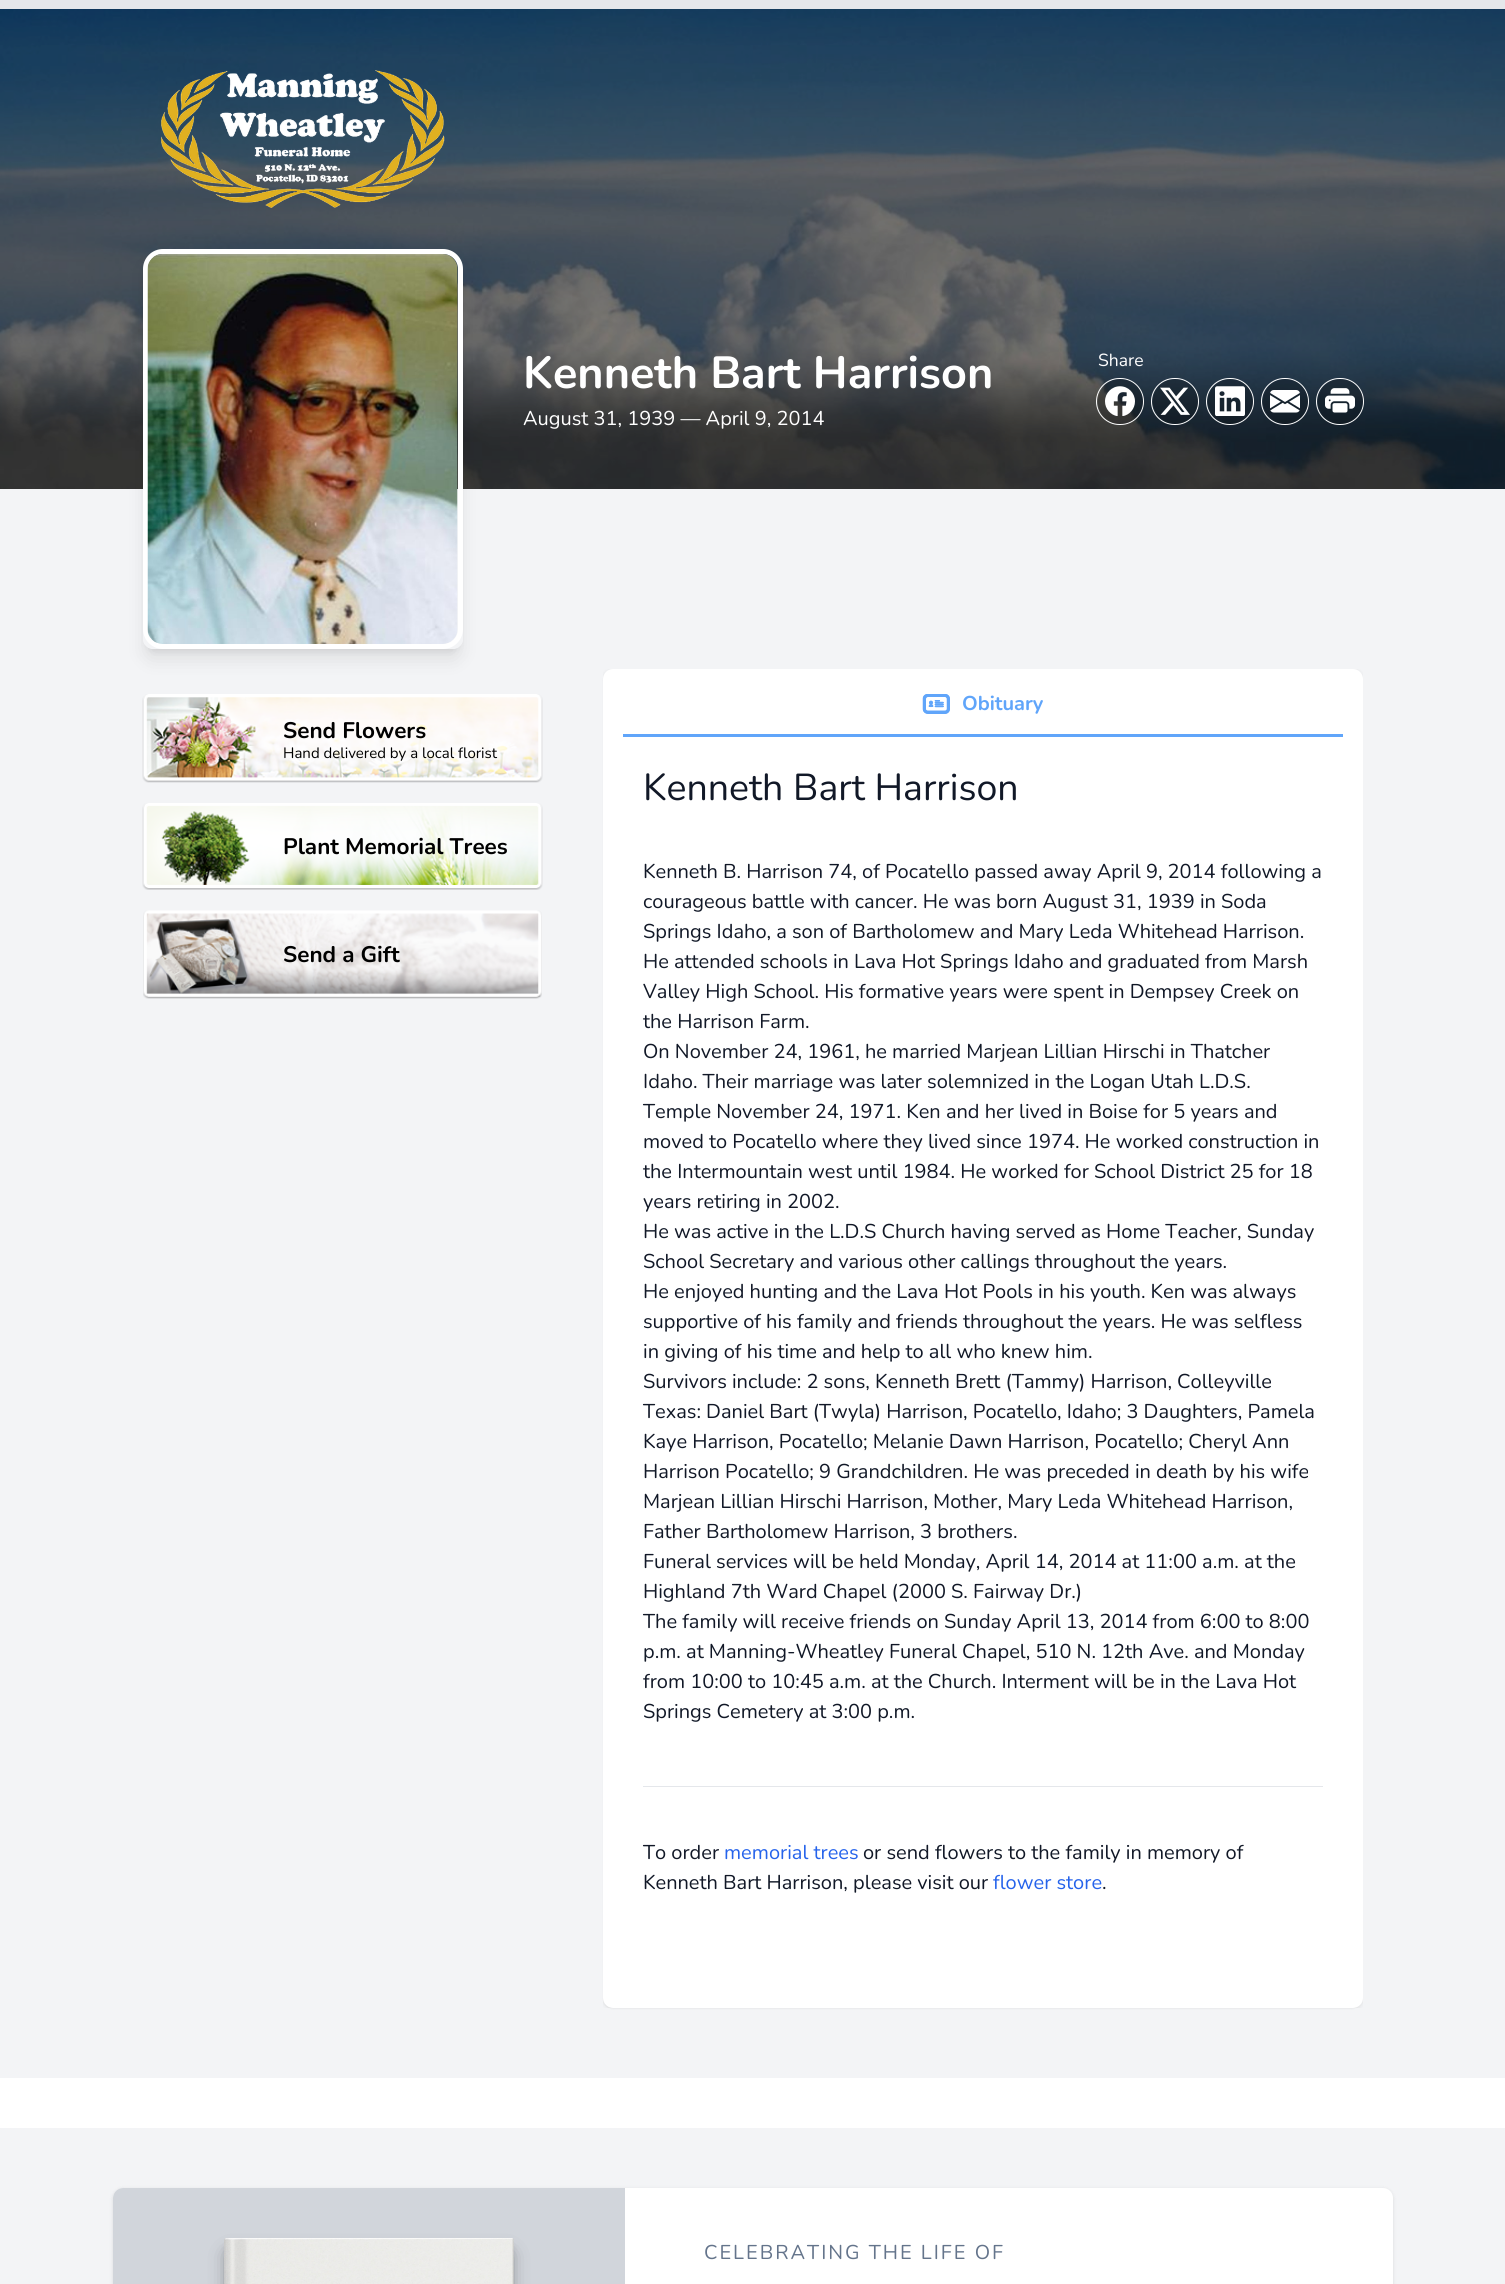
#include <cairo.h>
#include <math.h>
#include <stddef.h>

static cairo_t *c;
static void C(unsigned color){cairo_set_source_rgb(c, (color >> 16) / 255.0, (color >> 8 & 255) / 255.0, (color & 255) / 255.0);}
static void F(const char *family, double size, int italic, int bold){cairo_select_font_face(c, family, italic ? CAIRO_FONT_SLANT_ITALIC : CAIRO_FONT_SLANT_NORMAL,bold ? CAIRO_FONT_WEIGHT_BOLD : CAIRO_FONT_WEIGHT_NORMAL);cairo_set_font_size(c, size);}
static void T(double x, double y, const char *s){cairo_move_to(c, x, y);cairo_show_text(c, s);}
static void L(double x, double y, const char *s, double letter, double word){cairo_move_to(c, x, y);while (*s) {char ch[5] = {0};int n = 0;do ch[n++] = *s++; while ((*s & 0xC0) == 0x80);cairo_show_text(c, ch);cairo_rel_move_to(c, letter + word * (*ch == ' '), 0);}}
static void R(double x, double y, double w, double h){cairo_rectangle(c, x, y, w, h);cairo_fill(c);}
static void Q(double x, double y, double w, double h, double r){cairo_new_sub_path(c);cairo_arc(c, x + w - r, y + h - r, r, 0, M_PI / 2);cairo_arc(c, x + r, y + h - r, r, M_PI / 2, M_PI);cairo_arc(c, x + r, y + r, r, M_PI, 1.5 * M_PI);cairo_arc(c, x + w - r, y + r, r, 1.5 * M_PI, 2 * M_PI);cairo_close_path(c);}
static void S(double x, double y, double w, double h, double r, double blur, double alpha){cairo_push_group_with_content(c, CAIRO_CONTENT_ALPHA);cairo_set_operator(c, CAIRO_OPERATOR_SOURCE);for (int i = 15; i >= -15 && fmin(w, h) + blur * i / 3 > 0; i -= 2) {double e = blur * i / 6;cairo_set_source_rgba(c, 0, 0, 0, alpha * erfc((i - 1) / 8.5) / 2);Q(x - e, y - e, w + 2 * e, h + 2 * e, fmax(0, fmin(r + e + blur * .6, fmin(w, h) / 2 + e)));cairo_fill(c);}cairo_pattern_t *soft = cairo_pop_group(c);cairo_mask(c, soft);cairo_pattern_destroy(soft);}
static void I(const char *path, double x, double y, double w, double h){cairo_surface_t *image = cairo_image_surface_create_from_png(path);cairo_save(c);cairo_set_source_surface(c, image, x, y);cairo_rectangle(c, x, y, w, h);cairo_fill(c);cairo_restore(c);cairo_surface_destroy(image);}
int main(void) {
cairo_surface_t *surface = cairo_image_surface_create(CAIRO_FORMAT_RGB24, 1505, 2284);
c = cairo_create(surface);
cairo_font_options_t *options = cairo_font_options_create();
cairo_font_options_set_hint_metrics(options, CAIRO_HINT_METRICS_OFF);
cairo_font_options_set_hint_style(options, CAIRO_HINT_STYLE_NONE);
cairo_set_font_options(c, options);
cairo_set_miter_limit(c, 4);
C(0xffffff);
cairo_paint(c);
C(0xf3f4f6);
R(0,489,1505,1589);
C(0xe5e7eb);
R(0,0,1505,9);
I("1.png",0,9,1505,480);
I("2.png",161,70,284,138);
cairo_save(c);
cairo_set_fill_rule(c,CAIRO_FILL_RULE_EVEN_ODD);
cairo_new_path(c);
cairo_move_to(c,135,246);
cairo_line_to(c,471,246);
cairo_line_to(c,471,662);
cairo_line_to(c,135,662);
cairo_close_path(c);
cairo_move_to(c,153,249);
cairo_line_to(c,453,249);
cairo_curve_to(c,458.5,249,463,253.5,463,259);
cairo_line_to(c,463,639);
cairo_curve_to(c,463,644.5,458.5,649,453,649);
cairo_line_to(c,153,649);
cairo_curve_to(c,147.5,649,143,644.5,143,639);
cairo_line_to(c,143,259);
cairo_curve_to(c,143,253.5,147.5,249,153,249);
cairo_close_path(c);
cairo_clip(c);
C(0x000000);
S(148,259,310,390,5,4,.1);
cairo_restore(c);
cairo_save(c);
cairo_set_fill_rule(c,CAIRO_FILL_RULE_EVEN_ODD);
cairo_new_path(c);
cairo_move_to(c,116,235);
cairo_line_to(c,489,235);
cairo_line_to(c,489,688);
cairo_line_to(c,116,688);
cairo_close_path(c);
cairo_move_to(c,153,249);
cairo_line_to(c,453,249);
cairo_curve_to(c,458.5,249,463,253.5,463,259);
cairo_line_to(c,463,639);
cairo_curve_to(c,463,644.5,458.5,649,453,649);
cairo_line_to(c,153,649);
cairo_curve_to(c,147.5,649,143,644.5,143,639);
cairo_line_to(c,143,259);
cairo_curve_to(c,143,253.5,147.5,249,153,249);
cairo_close_path(c);
cairo_clip(c);
C(0x000000);
S(146,265,313,393,6,9.5,.1);
cairo_restore(c);
Q(145.5,251.5,315,395,17.5);
C(0xffffff);
cairo_set_line_width(c,5);
cairo_stroke(c);
I("3.png",147,254,311,390);
F("Nunito",45,0,1);
T(523,388,"Kenneth Bart Harrison");
F("Nunito",20,0,0);
T(523,425,"August 31, 1939 — April 9, 2014");
F("Nunito",17.5,0,0);
T(1098,366,"Share");
Q(1096.5,378.5,47,46,23);
cairo_set_line_width(c,1);
cairo_stroke(c);
cairo_set_source_rgba(c,0,0,0,0.2);
cairo_arc(c,1120.5,401.5,22.5,0,2 * M_PI);
cairo_fill(c);
I("4.png",1105,386,30,30);
Q(1151.5,378.5,47,46,23);
C(0xffffff);
cairo_stroke(c);
cairo_set_source_rgba(c,0,0,0,0.2);
cairo_arc(c,1175.5,401.5,22.5,0,2 * M_PI);
cairo_fill(c);
I("5.png",1160,387,30,28);
Q(1206.5,378.5,47,46,23);
C(0xffffff);
cairo_stroke(c);
cairo_set_source_rgba(c,0,0,0,0.2);
cairo_arc(c,1230.5,401.5,22.5,0,2 * M_PI);
cairo_fill(c);
I("6.png",1215,386,30,30);
Q(1261.5,378.5,47,46,23);
C(0xffffff);
cairo_stroke(c);
cairo_set_source_rgba(c,0,0,0,0.2);
cairo_arc(c,1285.5,401.5,22.5,0,2 * M_PI);
cairo_fill(c);
I("7.png",1270,390,30,23);
Q(1316.5,378.5,47,46,23);
C(0xffffff);
cairo_stroke(c);
cairo_set_source_rgba(c,0,0,0,0.2);
cairo_arc(c,1340.5,401.5,22.5,0,2 * M_PI);
cairo_fill(c);
I("8.png",1325,388,30,25);
I("9.png",142,694,401,89);
F("Nunito",22.5,0,1);
C(0x000000);
T(283,738,"Send Flowers");
F("Nunito",15,0,0);
T(283,758,"Hand delivered by a local florist");
I("10.png",142,803,401,87);
F("Nunito",22.5,0,1);
T(283,854,"Plant Memorial Trees");
I("11.png",143,910,399,89);
T(283,962,"Send a Gift");
C(0x000000);
S(604,671,757,1337,9,1,.1);
cairo_save(c);
cairo_rectangle(c,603,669,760,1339);
cairo_clip(c);
S(603,670,760,1339,10,2,.1);
cairo_restore(c);
C(0xffffff);
Q(603,669,760,1339,10);
cairo_fill(c);
C(0x60a5fa);
R(623,734,720,3);
I("12.png",922,694,28,20);
F("Nunito",20,0,1);
T(962,710,"Obituary");
F("Nunito",37.5,0,0);
C(0x111827);
T(643,800,"Kenneth Bart Harrison");
F("Nunito",20,0,0);
T(643,878,"Kenneth B. Harrison 74, of Pocatello passed away April 9, 2014 following a");
T(643,908,"courageous battle with cancer. He was born August 31, 1939 in Soda");
T(643,938,"Springs Idaho, a son of Bartholomew and Mary Leda Whitehead Harrison.");
T(643,968,"He attended schools in Lava Hot Springs Idaho and graduated from Marsh");
T(643,998,"Valley High School. His formative years were spent in Dempsey Creek on");
T(643,1028,"the Harrison Farm.");
T(643,1058,"On November 24, 1961, he married Marjean Lillian Hirschi in Thatcher");
T(643,1088,"Idaho. Their marriage was later solemnized in the Logan Utah L.D.S.");
T(643,1118,"Temple November 24, 1971. Ken and her lived in Boise for 5 years and");
T(643,1148,"moved to Pocatello where they lived since 1974. He worked construction in");
T(643,1178,"the Intermountain west until 1984. He worked for School District 25 for 18");
T(643,1208,"years retiring in 2002.");
T(643,1238,"He was active in the L.D.S Church having served as Home Teacher, Sunday");
T(643,1268,"School Secretary and various other callings throughout the years.");
T(643,1298,"He enjoyed hunting and the Lava Hot Pools in his youth. Ken was always");
T(643,1328,"supportive of his family and friends throughout the years. He was selfless");
T(643,1358,"in giving of his time and help to all who knew him.");
T(643,1388,"Survivors include: 2 sons, Kenneth Brett (Tammy) Harrison, Colleyville");
T(643,1418,"Texas: Daniel Bart (Twyla) Harrison, Pocatello, Idaho; 3 Daughters, Pamela");
T(643,1448,"Kaye Harrison, Pocatello; Melanie Dawn Harrison, Pocatello; Cheryl Ann");
T(643,1478,"Harrison Pocatello; 9 Grandchildren. He was preceded in death by his wife");
T(643,1508,"Marjean Lillian Hirschi Harrison, Mother, Mary Leda Whitehead Harrison,");
T(643,1538,"Father Bartholomew Harrison, 3 brothers.");
T(643,1568,"Funeral services will be held Monday, April 14, 2014 at 11:00 a.m. at the");
T(643,1598,"Highland 7th Ward Chapel (2000 S. Fairway Dr.)");
T(643,1628,"The family will receive friends on Sunday April 13, 2014 from 6:00 to 8:00");
T(643,1658,"p.m. at Manning-Wheatley Funeral Chapel, 510 N. 12th Ave. and Monday");
T(643,1688,"from 10:00 to 10:45 a.m. at the Church. Interment will be in the Lava Hot");
T(643,1718,"Springs Cemetery at 3:00 p.m.");
C(0xe5e7eb);
R(643,1786,680,1);
C(0x111827);
T(643,1859,"To order");
C(0x2563eb);
T(724,1859,"memorial trees");
C(0x111827);
T(863,1859,"or send flowers to the family in memory of");
T(643,1889,"Kenneth Bart Harrison, please visit our");
C(0x2563eb);
T(993,1889,"flower store");
C(0x111827);
T(1102,1889,".");
C(0xf3f4f6);
R(0,2128,1505,156);
C(0x000000);
S(113,2189,1280,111,10,2,.1);
C(0xffffff);
Q(113,2188,1280,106,10);
cairo_fill(c);
C(0xd1d5db);
cairo_new_path(c);
cairo_move_to(c,123,2188);
cairo_line_to(c,625,2188);
cairo_line_to(c,625,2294);
cairo_line_to(c,123,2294);
cairo_curve_to(c,117.5,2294,113,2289.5,113,2284);
cairo_line_to(c,113,2198);
cairo_curve_to(c,113,2192.5,117.5,2188,123,2188);
cairo_close_path(c);
cairo_fill(c);
C(0x000000);
S(229,2248,280,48,0,4,.35);
S(228,2254,282,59,0,9.5,.35);
I("13.png",224,2238,290,46);
I("14.png",224,2238,290,46);
C(0x64748b);
L(704,2259,"CELEBRATING THE LIFE OF",2,0);
cairo_surface_write_to_png(surface, "o.png");
cairo_font_options_destroy(options);
cairo_destroy(c);
cairo_surface_destroy(surface);
return 0;
}
